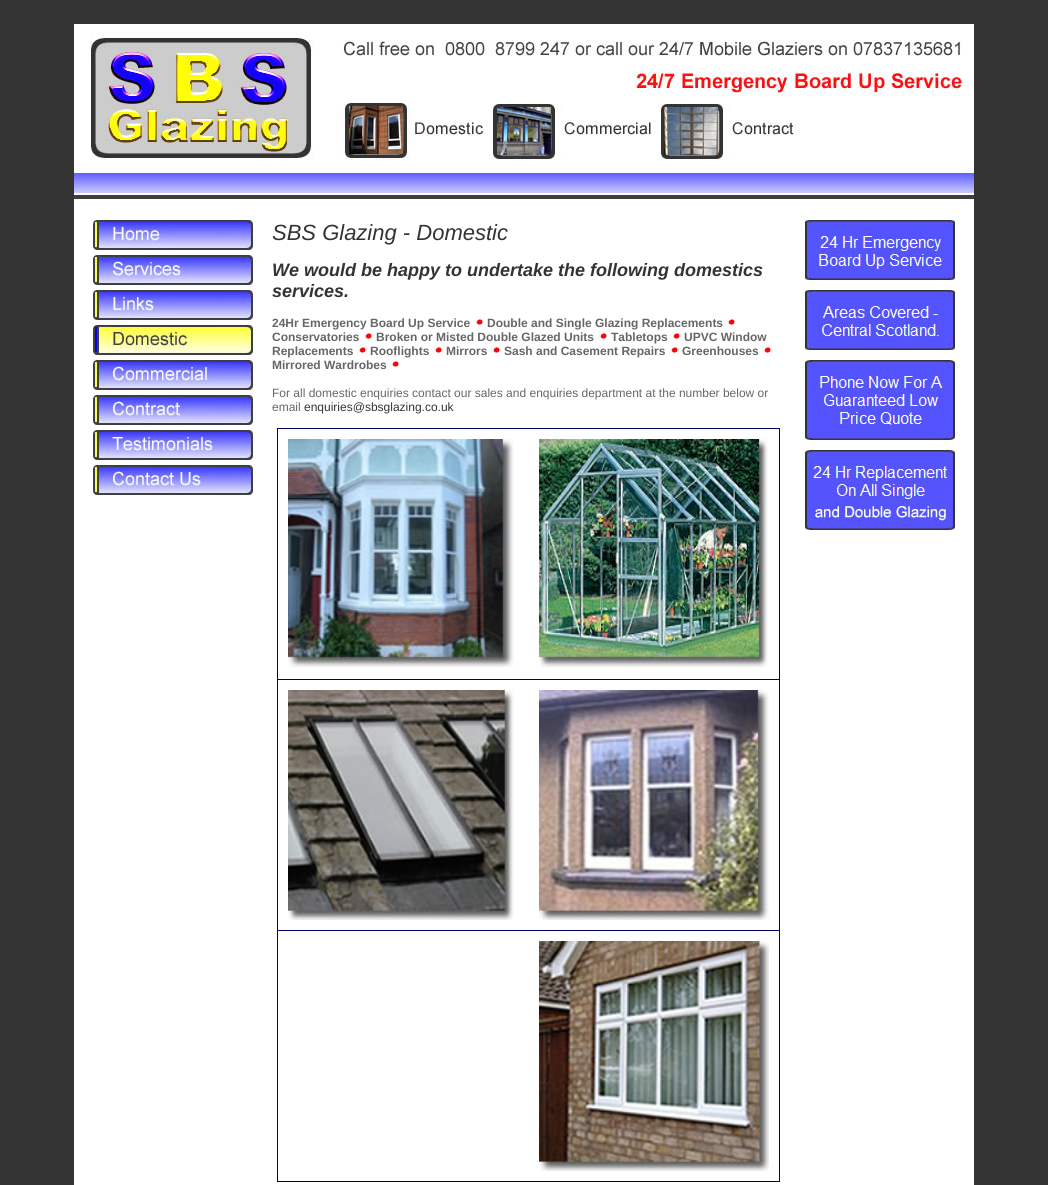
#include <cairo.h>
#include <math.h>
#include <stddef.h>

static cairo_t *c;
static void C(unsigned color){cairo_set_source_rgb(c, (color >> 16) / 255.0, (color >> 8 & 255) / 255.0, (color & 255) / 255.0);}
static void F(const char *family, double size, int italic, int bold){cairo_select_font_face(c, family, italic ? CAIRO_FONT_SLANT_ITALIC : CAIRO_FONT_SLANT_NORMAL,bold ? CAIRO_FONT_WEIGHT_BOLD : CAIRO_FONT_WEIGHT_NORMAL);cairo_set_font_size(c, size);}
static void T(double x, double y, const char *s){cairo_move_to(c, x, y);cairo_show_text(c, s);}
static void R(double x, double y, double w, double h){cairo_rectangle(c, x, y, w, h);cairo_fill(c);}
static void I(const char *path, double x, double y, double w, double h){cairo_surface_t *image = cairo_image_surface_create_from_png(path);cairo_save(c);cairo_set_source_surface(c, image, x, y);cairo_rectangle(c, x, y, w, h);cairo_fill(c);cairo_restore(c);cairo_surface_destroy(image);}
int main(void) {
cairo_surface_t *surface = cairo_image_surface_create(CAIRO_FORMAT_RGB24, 1048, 1185);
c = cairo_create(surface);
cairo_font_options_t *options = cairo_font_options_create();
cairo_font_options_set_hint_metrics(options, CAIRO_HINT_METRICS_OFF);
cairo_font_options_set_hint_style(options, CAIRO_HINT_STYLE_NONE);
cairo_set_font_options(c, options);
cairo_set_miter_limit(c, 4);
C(0x333333);
cairo_paint(c);
C(0xffffff);
R(74,199,900,986);
I("1.png",74,0,900,199);
I("2.png",93,220,160,30);
I("3.png",93,255,160,30);
I("4.png",93,290,160,30);
I("5.png",93,325,160,30);
I("6.png",93,360,160,30);
I("7.png",93,395,160,30);
I("8.png",93,430,160,30);
I("9.png",93,465,160,30);
F("Liberation Sans",22,1,0);
C(0x333333);
T(272,240,"SBS Glazing - Domestic");
F("Liberation Sans",18,1,1);
T(272,276,"We would be happy to undertake the following domestics");
T(272,297,"services.");
F("Liberation Sans",12,0,1);
C(0x666666);
T(272,327,"24Hr Emergency Board Up Service");
I("10.png",474,317,10,8);
T(487,327,"Double and Single Glazing Replacements");
I("10.png",726,317,10,8);
T(272,341,"Conservatories");
I("10.png",363,331,10,8);
T(376,341,"Broken or Misted Double Glazed Units");
I("10.png",598,331,10,8);
T(611,341,"Tabletops");
I("10.png",671,331,10,8);
T(684,341,"UPVC Window");
T(272,355,"Replacements");
I("10.png",357,345,10,8);
T(370,355,"Rooflights");
I("10.png",433,345,10,8);
T(446,355,"Mirrors");
I("10.png",491,345,10,8);
T(504,355,"Sash and Casement Repairs");
I("10.png",669,345,10,8);
T(682,355,"Greenhouses");
I("10.png",762,345,10,8);
T(272,369,"Mirrored Wardrobes");
I("10.png",390,359,10,8);
F("Liberation Sans",12,0,0);
T(272,397,"For all domestic enquiries contact our sales and enquiries department at the number below or");
T(272,411,"email");
C(0x333333);
T(304,411,"enquiries@sbsglazing.co.uk");
C(0x000066);
R(277,428,503,754);
C(0xffffff);
R(278,429,501,250);
I("11.png",288,439,226,229);
I("12.png",539,439,229,229);
R(278,680,501,250);
I("13.png",288,690,226,230);
I("14.png",539,690,230,230);
R(278,931,501,250);
I("15.png",539,941,230,230);
I("16.png",805,220,150,60);
I("17.png",805,290,150,60);
I("18.png",805,360,150,80);
I("19.png",805,450,150,80);
cairo_surface_write_to_png(surface, "o.png");
cairo_font_options_destroy(options);
cairo_destroy(c);
cairo_surface_destroy(surface);
return 0;
}
